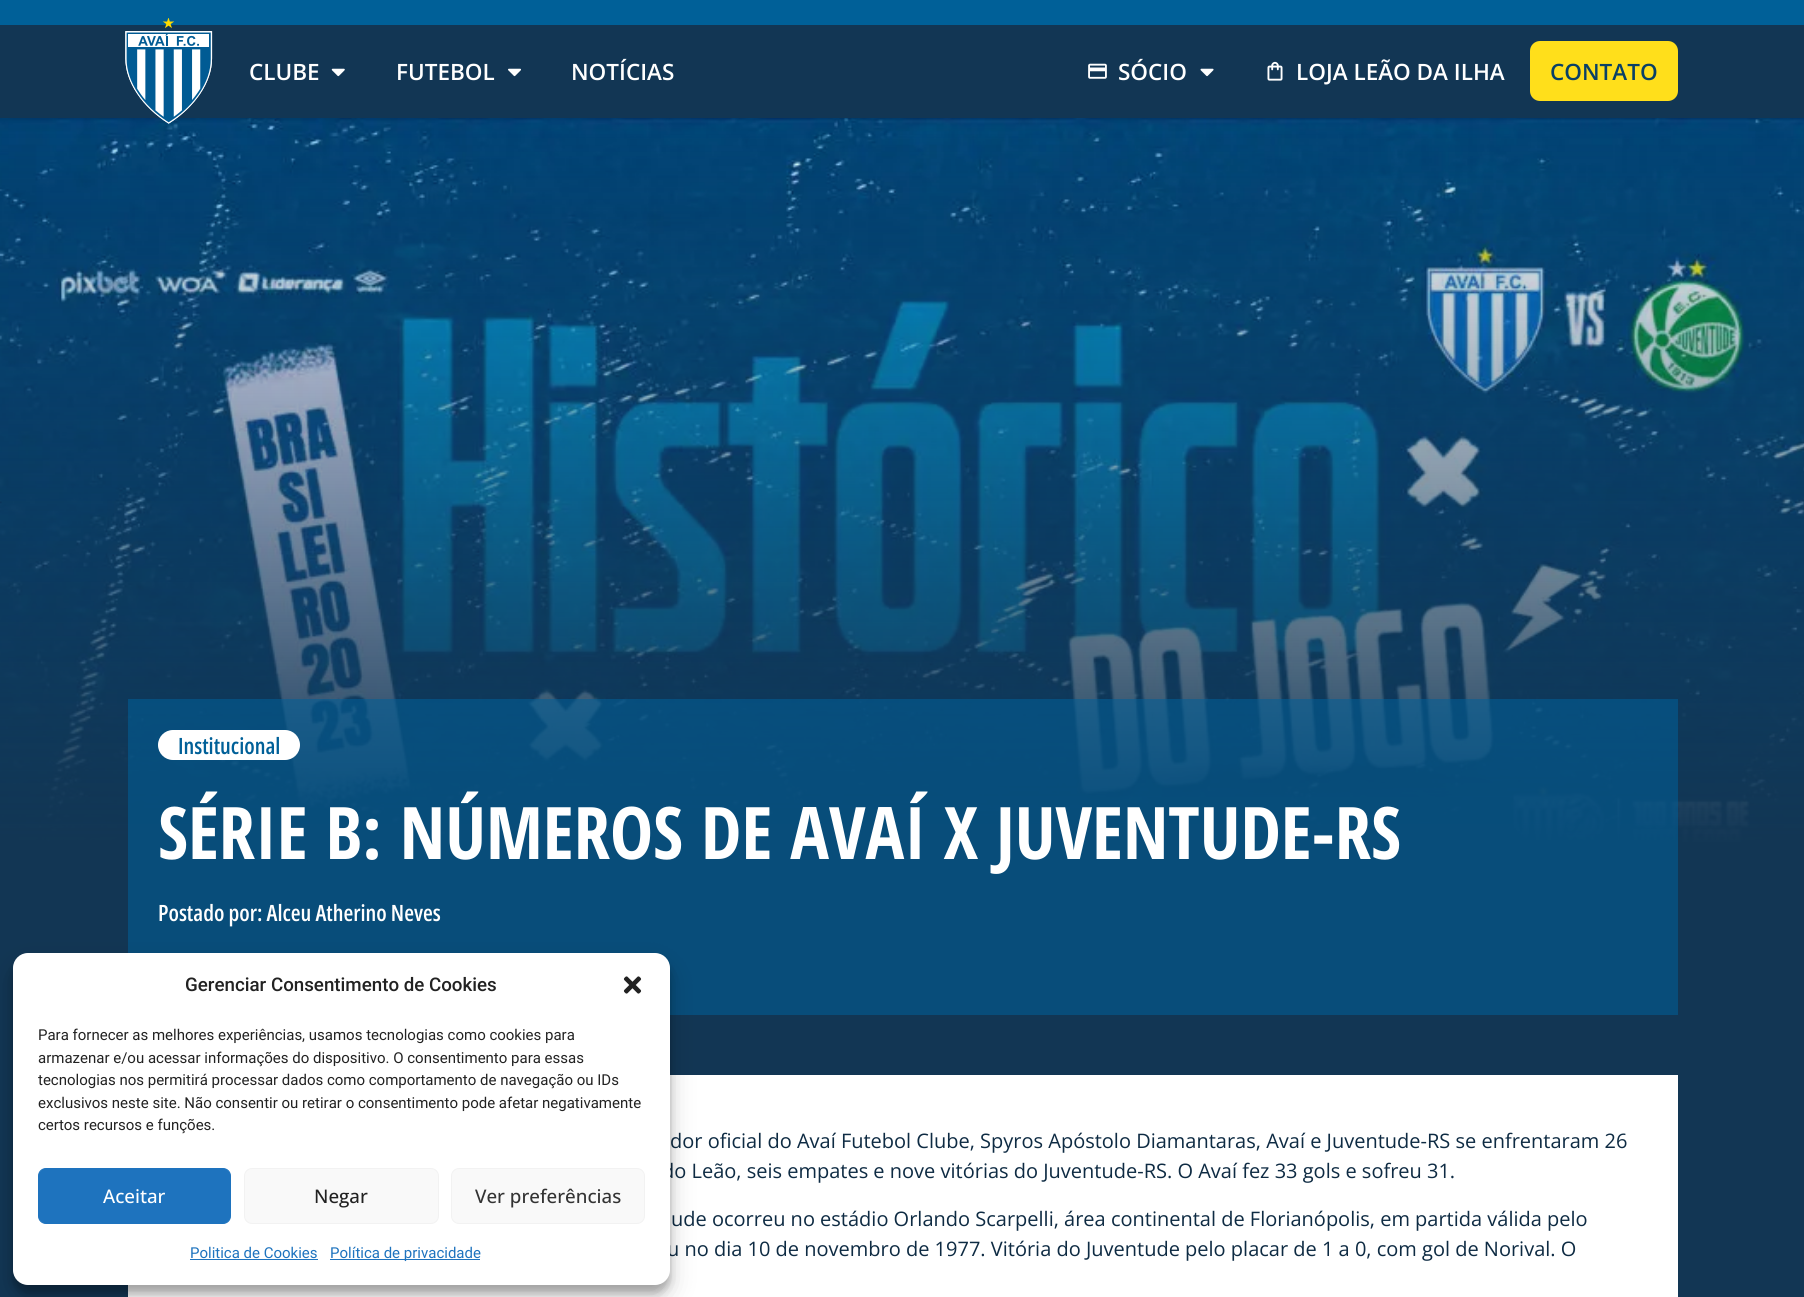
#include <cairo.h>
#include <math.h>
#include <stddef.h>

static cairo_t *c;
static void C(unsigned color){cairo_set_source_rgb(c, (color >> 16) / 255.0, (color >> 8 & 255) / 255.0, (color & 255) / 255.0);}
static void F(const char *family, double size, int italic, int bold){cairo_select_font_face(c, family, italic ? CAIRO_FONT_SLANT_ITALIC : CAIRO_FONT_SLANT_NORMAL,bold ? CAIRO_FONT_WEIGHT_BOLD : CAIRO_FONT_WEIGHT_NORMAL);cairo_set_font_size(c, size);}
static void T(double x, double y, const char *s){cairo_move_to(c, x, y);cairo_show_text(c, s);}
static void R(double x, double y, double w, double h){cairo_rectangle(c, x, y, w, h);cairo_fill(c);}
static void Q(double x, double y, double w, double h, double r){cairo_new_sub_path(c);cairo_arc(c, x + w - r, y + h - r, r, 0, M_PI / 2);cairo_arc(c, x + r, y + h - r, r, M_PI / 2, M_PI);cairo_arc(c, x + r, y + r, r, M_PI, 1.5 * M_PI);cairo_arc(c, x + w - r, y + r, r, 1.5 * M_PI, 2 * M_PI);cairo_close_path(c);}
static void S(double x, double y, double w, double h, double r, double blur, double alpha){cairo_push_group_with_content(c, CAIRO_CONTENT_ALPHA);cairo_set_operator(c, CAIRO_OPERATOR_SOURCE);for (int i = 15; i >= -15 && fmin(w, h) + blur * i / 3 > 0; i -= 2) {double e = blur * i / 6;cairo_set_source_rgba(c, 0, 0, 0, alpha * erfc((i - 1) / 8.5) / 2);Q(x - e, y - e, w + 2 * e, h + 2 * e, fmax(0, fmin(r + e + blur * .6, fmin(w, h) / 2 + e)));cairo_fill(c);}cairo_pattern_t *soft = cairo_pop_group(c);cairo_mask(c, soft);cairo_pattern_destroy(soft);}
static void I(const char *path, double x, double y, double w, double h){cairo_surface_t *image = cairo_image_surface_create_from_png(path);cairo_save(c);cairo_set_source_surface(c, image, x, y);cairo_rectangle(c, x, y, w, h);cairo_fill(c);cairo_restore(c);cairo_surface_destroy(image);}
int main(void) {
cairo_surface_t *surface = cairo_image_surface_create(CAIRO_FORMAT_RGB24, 1804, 1297);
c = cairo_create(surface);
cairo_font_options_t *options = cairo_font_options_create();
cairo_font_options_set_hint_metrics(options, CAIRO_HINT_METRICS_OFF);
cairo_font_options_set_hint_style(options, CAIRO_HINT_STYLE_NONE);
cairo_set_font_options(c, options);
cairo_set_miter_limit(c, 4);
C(0xffffff);
cairo_paint(c);
C(0x123654);
R(0,25,1804,93);
C(0x006098);
R(0,0,1804,25);
I("7.png",0,118,1804,1037);
I("1.png",125,18,88,106);
F("Open Sans SemiBold",22.5,0,0);
C(0xffffff);
T(249,80,"CLUBE");
I("2.png",331,68,14,9);
T(396,80,"FUTEBOL");
I("3.png",508,68,13,9);
T(571,80,"NOTÍCIAS");
I("4.png",1088,63,19,16);
T(1118,80,"SÓCIO");
I("5.png",1200,68,14,9);
I("6.png",1267,61,16,20);
T(1296,80,"LOJA LEÃO DA ILHA");
C(0xffdf1b);
Q(1530,41,148,60,10);
cairo_fill(c);
C(0x094066);
T(1550,80,"CONTATO");
cairo_set_source_rgba(c,0,0.376,0.596,0.56);
R(128,699,1550,316);
C(0xffffff);
Q(158,730,142,30,15);
cairo_fill(c);
F("Open Sans Condensed SemiBold",22.5,0,0);
C(0x006098);
T(178,754,"Institucional");
F("Open Sans Condensed",72.5,0,1);
C(0xffffff);
T(158,859,"SÉRIE B: NÚMEROS DE AVAÍ X JUVENTUDE-RS");
F("Open Sans Condensed SemiBold",22.5,0,0);
T(158,921,"Postado por: Alceu Atherino Neves");
C(0x123654);
R(0,1155,1804,142);
C(0xffffff);
R(128,1075,1550,222);
F("Open Sans",20,0,0);
C(0x0e2b43);
T(670,1148,"dor oficial do Avaí Futebol Clube, Spyros Apóstolo Diamantaras, Avaí e Juventude-RS se enfrentaram 26");
T(662,1178,"do Leão, seis empates e nove vitórias do Juventude-RS. O Avaí fez 33 gols e sofreu 31.");
T(671,1226,"ude ocorreu no estádio Orlando Scarpelli, área continental de Florianópolis, em partida válida pelo");
T(667,1256,"u no dia 10 de novembro de 1977. Vitória do Juventude pelo placar de 1 a 0, com gol de Norival. O");
C(0x000000);
S(13,960,657,333,15,4,.23);
S(13,965,657,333,15,12.5,.19);
C(0xffffff);
Q(13,953,657,332,15);
cairo_fill(c);
F("Roboto Medium",18.75,0,0);
C(0x222222);
T(185,991,"Gerenciar Consentimento de Cookies");
I("8.png",623,976,19,18);
F("Roboto",15,0,0);
T(38,1040,"Para fornecer as melhores experiências, usamos tecnologias como cookies para");
T(38,1063,"armazenar e/ou acessar informações do dispositivo. O consentimento para essas");
T(38,1085,"tecnologias nos permitirá processar dados como comportamento de navegação ou IDs");
T(38,1108,"exclusivos neste site. Não consentir ou retirar o consentimento pode afetar negativamente");
T(38,1130,"certos recursos e funções.");
C(0x1e73be);
Q(38.5,1168.5,192,55,7.5);
cairo_fill_preserve(c);
cairo_set_line_width(c,1);
cairo_stroke(c);
F("Open Sans Medium",18.75,0,0);
C(0xffffff);
T(103,1203,"Aceitar");
C(0xf9f9f9);
Q(244.5,1168.5,194,55,7.5);
cairo_fill_preserve(c);
C(0xf2f2f2);
cairo_stroke(c);
C(0x222222);
T(314,1203,"Negar");
C(0xf9f9f9);
Q(451.5,1168.5,193,55,7.5);
cairo_fill_preserve(c);
C(0xf2f2f2);
cairo_stroke(c);
C(0x333333);
T(475,1203,"Ver preferências");
F("Roboto",15,0,0);
C(0x1e73be);
T(190,1258,"Politica de Cookies");
R(190,1259,128,1);
R(330,1259,150,1);
T(330,1258,"Política de privacidade");
cairo_surface_write_to_png(surface, "o.png");
cairo_font_options_destroy(options);
cairo_destroy(c);
cairo_surface_destroy(surface);
return 0;
}
